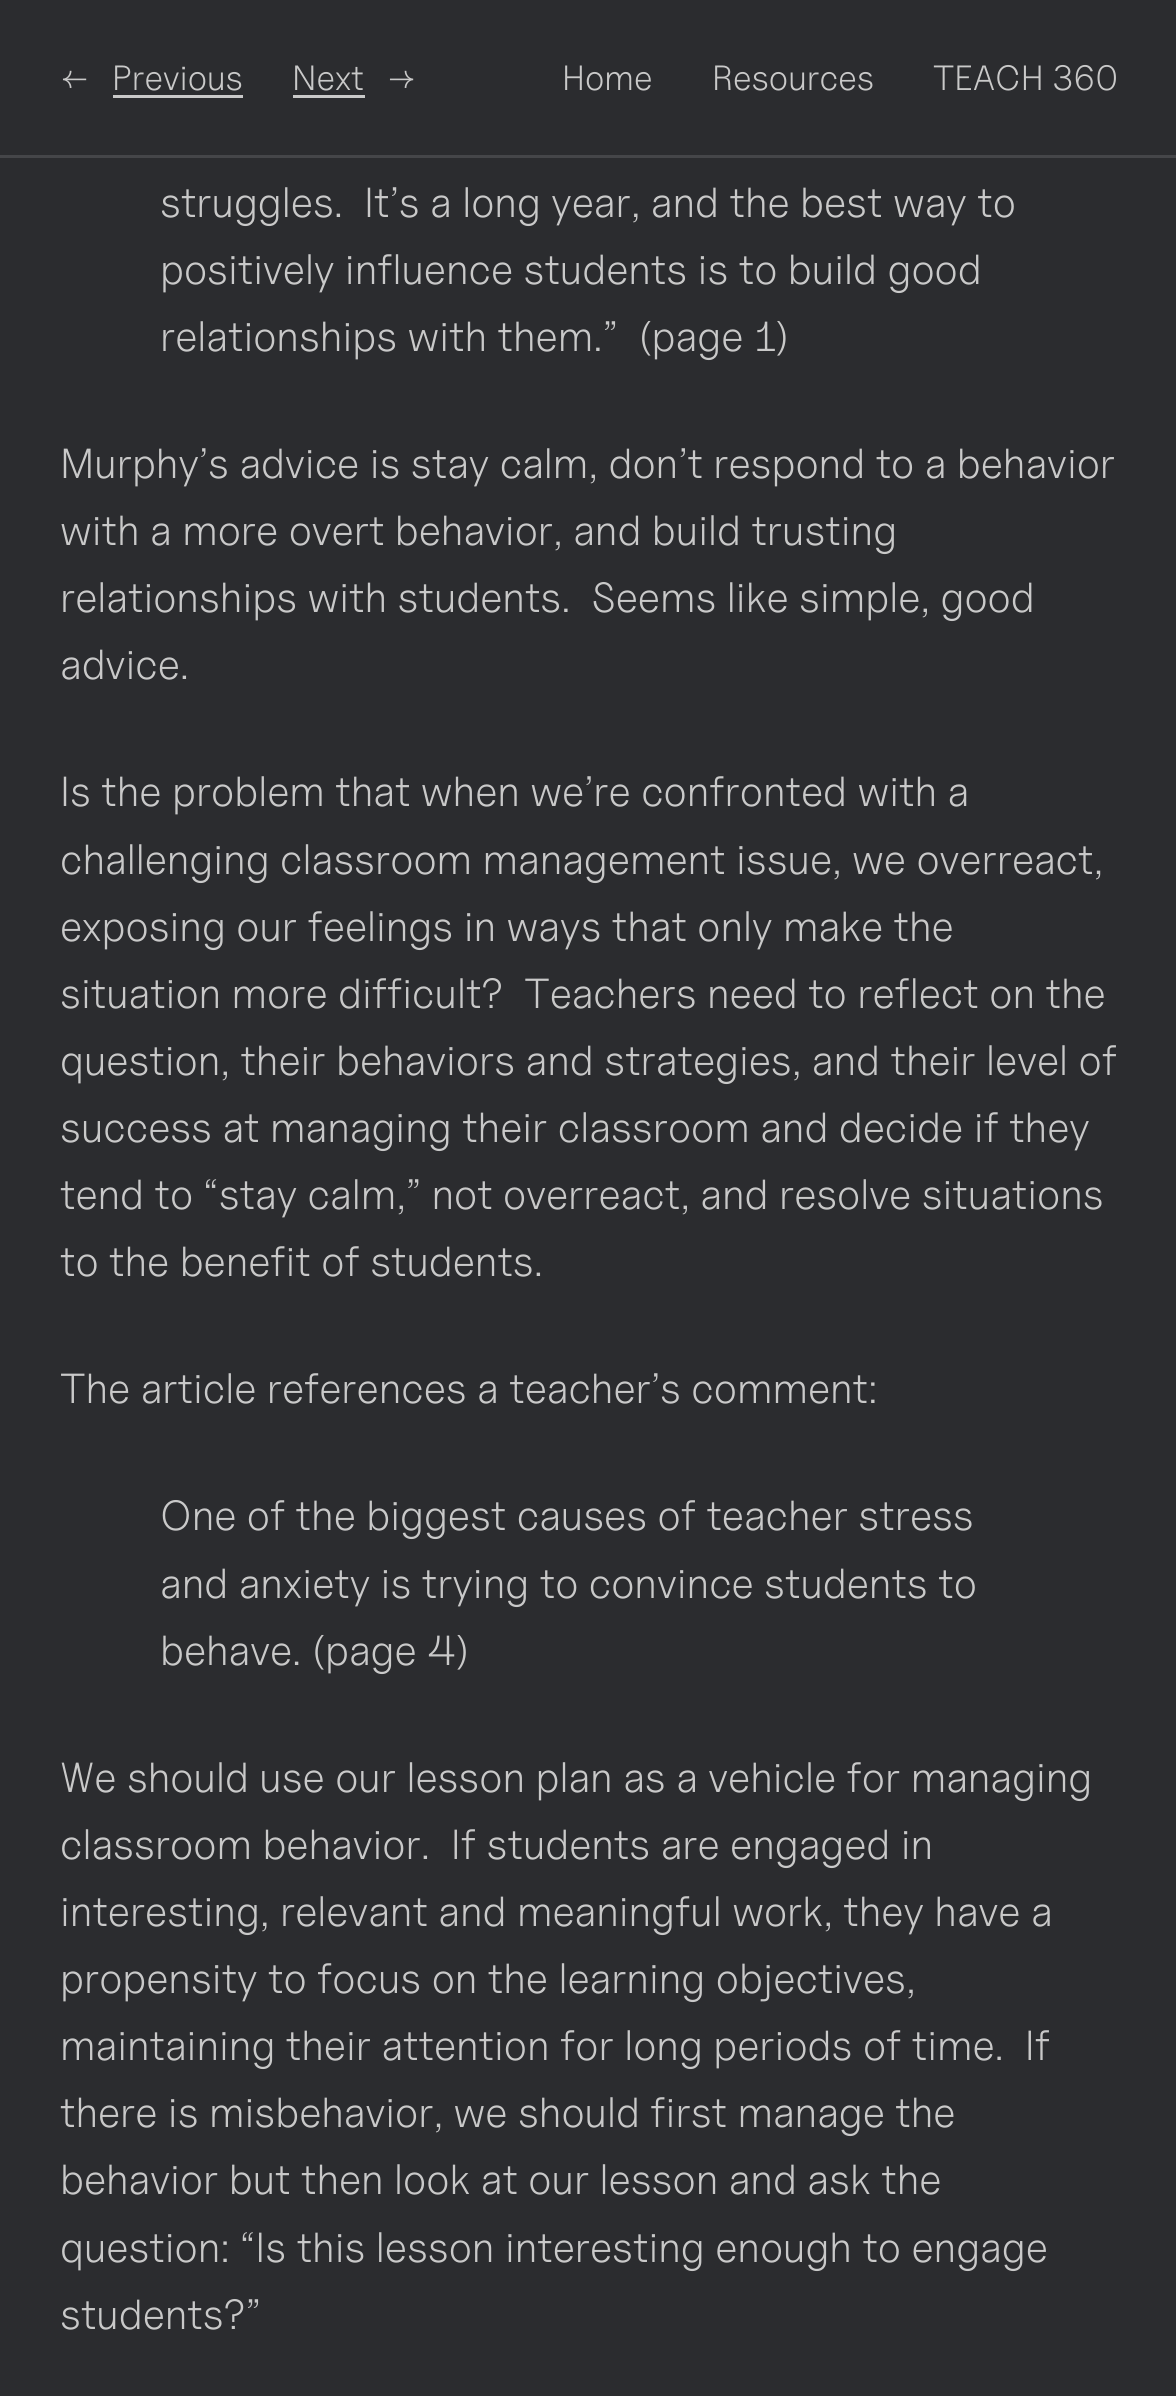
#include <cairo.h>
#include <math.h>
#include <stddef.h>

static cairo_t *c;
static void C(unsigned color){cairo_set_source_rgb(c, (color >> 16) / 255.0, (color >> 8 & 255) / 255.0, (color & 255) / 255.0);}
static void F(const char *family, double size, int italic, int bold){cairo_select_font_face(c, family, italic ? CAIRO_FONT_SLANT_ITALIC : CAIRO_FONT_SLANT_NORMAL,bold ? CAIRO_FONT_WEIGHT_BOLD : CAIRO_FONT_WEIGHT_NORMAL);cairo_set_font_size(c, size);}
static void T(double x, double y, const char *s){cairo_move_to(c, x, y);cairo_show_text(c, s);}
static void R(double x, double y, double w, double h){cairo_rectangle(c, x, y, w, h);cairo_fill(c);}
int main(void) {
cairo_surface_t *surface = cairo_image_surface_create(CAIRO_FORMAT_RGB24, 1176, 2396);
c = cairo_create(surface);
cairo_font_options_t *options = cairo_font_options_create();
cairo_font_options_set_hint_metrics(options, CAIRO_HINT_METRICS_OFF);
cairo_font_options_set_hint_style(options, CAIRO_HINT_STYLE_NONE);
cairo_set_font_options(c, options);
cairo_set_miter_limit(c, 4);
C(0x2b2c2f);
cairo_paint(c);
C(0x454649);
R(0,155,1176,3);
F("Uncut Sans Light",35,0,0);
C(0xc9c9c9);
T(60,90,"←");
T(112,90,"Previous");
R(113,95,130,3);
T(292,90,"Next");
R(293,95,72,3);
T(387,90,"→");
T(562,90,"Home");
T(712,90,"Resources");
T(933,90,"TEACH 360");
F("Uncut Sans Light",41.95,0,0);
T(160,217,"struggles.  It’s a long year, and the best way to");
T(160,284,"positively influence students is to build good");
T(160,351,"relationships with them.”  (page 1)");
T(60,478,"Murphy’s advice is stay calm, don’t respond to a behavior");
T(60,545,"with a more overt behavior, and build trusting");
T(60,612,"relationships with students.  Seems like simple, good");
T(60,679,"advice.");
T(60,806,"Is the problem that when we’re confronted with a");
T(60,874,"challenging classroom management issue, we overreact,");
T(60,941,"exposing our feelings in ways that only make the");
T(60,1008,"situation more difficult?  Teachers need to reflect on the");
T(60,1075,"question, their behaviors and strategies, and their level of");
T(60,1142,"success at managing their classroom and decide if they");
T(60,1209,"tend to “stay calm,” not overreact, and resolve situations");
T(60,1276,"to the benefit of students.");
T(60,1403,"The article references a teacher’s comment:");
T(160,1530,"One of the biggest causes of teacher stress");
T(160,1598,"and anxiety is trying to convince students to");
T(160,1665,"behave. (page 4)");
T(60,1792,"We should use our lesson plan as a vehicle for managing");
T(60,1859,"classroom behavior.  If students are engaged in");
T(60,1926,"interesting, relevant and meaningful work, they have a");
T(60,1993,"propensity to focus on the learning objectives,");
T(60,2060,"maintaining their attention for long periods of time.  If");
T(60,2127,"there is misbehavior, we should first manage the");
T(60,2194,"behavior but then look at our lesson and ask the");
T(60,2262,"question: “Is this lesson interesting enough to engage");
T(60,2329,"students?”");
cairo_surface_write_to_png(surface, "o.png");
cairo_font_options_destroy(options);
cairo_destroy(c);
cairo_surface_destroy(surface);
return 0;
}
